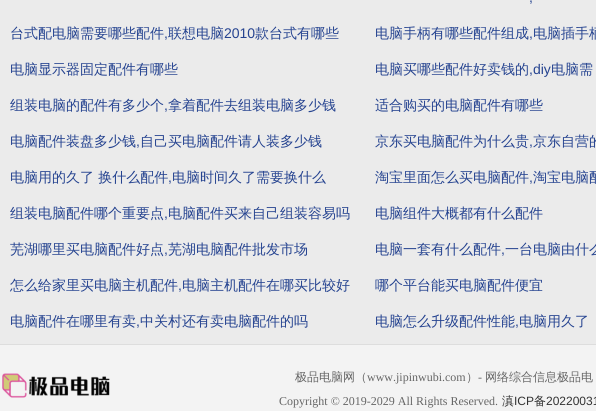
#include <cairo.h>
#include <math.h>
#include <stddef.h>

static cairo_t *c;
static void C(unsigned color){cairo_set_source_rgb(c, (color >> 16) / 255.0, (color >> 8 & 255) / 255.0, (color & 255) / 255.0);}
static void F(const char *family, double size, int italic, int bold){cairo_select_font_face(c, family, italic ? CAIRO_FONT_SLANT_ITALIC : CAIRO_FONT_SLANT_NORMAL,bold ? CAIRO_FONT_WEIGHT_BOLD : CAIRO_FONT_WEIGHT_NORMAL);cairo_set_font_size(c, size);}
static void T(double x, double y, const char *s){cairo_move_to(c, x, y);cairo_show_text(c, s);}
static void R(double x, double y, double w, double h){cairo_rectangle(c, x, y, w, h);cairo_fill(c);}
static void I(const char *path, double x, double y, double w, double h){cairo_surface_t *image = cairo_image_surface_create_from_png(path);cairo_save(c);cairo_set_source_surface(c, image, x, y);cairo_rectangle(c, x, y, w, h);cairo_fill(c);cairo_restore(c);cairo_surface_destroy(image);}
int main(void) {
cairo_surface_t *surface = cairo_image_surface_create(CAIRO_FORMAT_RGB24, 596, 411);
c = cairo_create(surface);
cairo_font_options_t *options = cairo_font_options_create();
cairo_font_options_set_hint_metrics(options, CAIRO_HINT_METRICS_OFF);
cairo_font_options_set_hint_style(options, CAIRO_HINT_STYLE_NONE);
cairo_set_font_options(c, options);
cairo_set_miter_limit(c, 4);
C(0xf3f3f3);
cairo_paint(c);
C(0xebebeb);
R(0,0,596,344);
F("Liberation Sans",14,0,0);
C(0x254390);
T(529,2,",");
F("WenQuanYi Zen Hei Medium",14,0,0);
T(10,38,"台式配电脑需要哪些配件");
F("Liberation Sans",14,0,0);
T(164,38,",");
F("WenQuanYi Zen Hei Medium",14,0,0);
T(168,38,"联想电脑");
F("Liberation Sans",14,0,0);
T(224,38,"2010");
F("WenQuanYi Zen Hei Medium",14,0,0);
T(255,38,"款台式有哪些");
T(375,38,"电脑手柄有哪些配件组成");
F("Liberation Sans",14,0,0);
T(529,38,",");
F("WenQuanYi Zen Hei Medium",14,0,0);
T(533,38,"电脑插手柄");
T(10,74,"电脑显示器固定配件有哪些");
T(375,74,"电脑买哪些配件好卖钱的");
F("Liberation Sans",14,0,0);
T(529,74,",diy");
F("WenQuanYi Zen Hei Medium",14,0,0);
T(551,74,"电脑需");
T(10,110,"组装电脑的配件有多少个");
F("Liberation Sans",14,0,0);
T(164,110,",");
F("WenQuanYi Zen Hei Medium",14,0,0);
T(168,110,"拿着配件去组装电脑多少钱");
T(375,110,"适合购买的电脑配件有哪些");
T(10,146,"电脑配件装盘多少钱");
F("Liberation Sans",14,0,0);
T(136,146,",");
F("WenQuanYi Zen Hei Medium",14,0,0);
T(140,146,"自己买电脑配件请人装多少钱");
T(375,146,"京东买电脑配件为什么贵");
F("Liberation Sans",14,0,0);
T(529,146,",");
F("WenQuanYi Zen Hei Medium",14,0,0);
T(533,146,"京东自营的");
T(10,182,"电脑用的久了 换什么配件");
F("Liberation Sans",14,0,0);
T(168,182,",");
F("WenQuanYi Zen Hei Medium",14,0,0);
T(172,182,"电脑时间久了需要换什么");
T(375,182,"淘宝里面怎么买电脑配件");
F("Liberation Sans",14,0,0);
T(529,182,",");
F("WenQuanYi Zen Hei Medium",14,0,0);
T(533,182,"淘宝电脑配");
T(10,218,"组装电脑配件哪个重要点");
F("Liberation Sans",14,0,0);
T(164,218,",");
F("WenQuanYi Zen Hei Medium",14,0,0);
T(168,218,"电脑配件买来自己组装容易吗");
T(375,218,"电脑组件大概都有什么配件");
T(10,254,"芜湖哪里买电脑配件好点");
F("Liberation Sans",14,0,0);
T(164,254,",");
F("WenQuanYi Zen Hei Medium",14,0,0);
T(168,254,"芜湖电脑配件批发市场");
T(375,254,"电脑一套有什么配件");
F("Liberation Sans",14,0,0);
T(501,254,",");
F("WenQuanYi Zen Hei Medium",14,0,0);
T(505,254,"一台电脑由什么");
T(10,290,"怎么给家里买电脑主机配件");
F("Liberation Sans",14,0,0);
T(178,290,",");
F("WenQuanYi Zen Hei Medium",14,0,0);
T(182,290,"电脑主机配件在哪买比较好");
T(375,290,"哪个平台能买电脑配件便宜");
T(10,326,"电脑配件在哪里有卖");
F("Liberation Sans",14,0,0);
T(136,326,",");
F("WenQuanYi Zen Hei Medium",14,0,0);
T(140,326,"中关村还有卖电脑配件的吗");
T(375,326,"电脑怎么升级配件性能");
F("Liberation Sans",14,0,0);
T(515,326,",");
F("WenQuanYi Zen Hei Medium",14,0,0);
T(519,326,"电脑用久了");
C(0xdddddd);
R(0,344,596,1);
I("1.png",2,373,108,25);
F("WenQuanYi Zen Hei Medium",12,0,0);
C(0x666666);
T(295,381,"极品电脑网（");
F("Liberation Serif",12,0,0);
T(367,381,"www.jipinwubi.com");
F("WenQuanYi Zen Hei Medium",12,0,0);
T(466,381,"）");
F("Liberation Serif",12,0,0);
T(478,381,"-");
F("WenQuanYi Zen Hei Medium",12,0,0);
T(485,381,"网络综合信息极品电");
F("Liberation Serif",12,0,0);
T(279,405,"Copyright © 2019-2029 All Rights Reserved.");
F("WenQuanYi Zen Hei Medium",12,0,0);
C(0x333333);
T(502,405,"滇");
F("Liberation Sans",12,0,0);
T(514,405,"ICP");
F("WenQuanYi Zen Hei Medium",12,0,0);
T(534,405,"备");
F("Liberation Sans",12,0,0);
T(546,405,"20220031");
cairo_surface_write_to_png(surface, "o.png");
cairo_font_options_destroy(options);
cairo_destroy(c);
cairo_surface_destroy(surface);
return 0;
}
